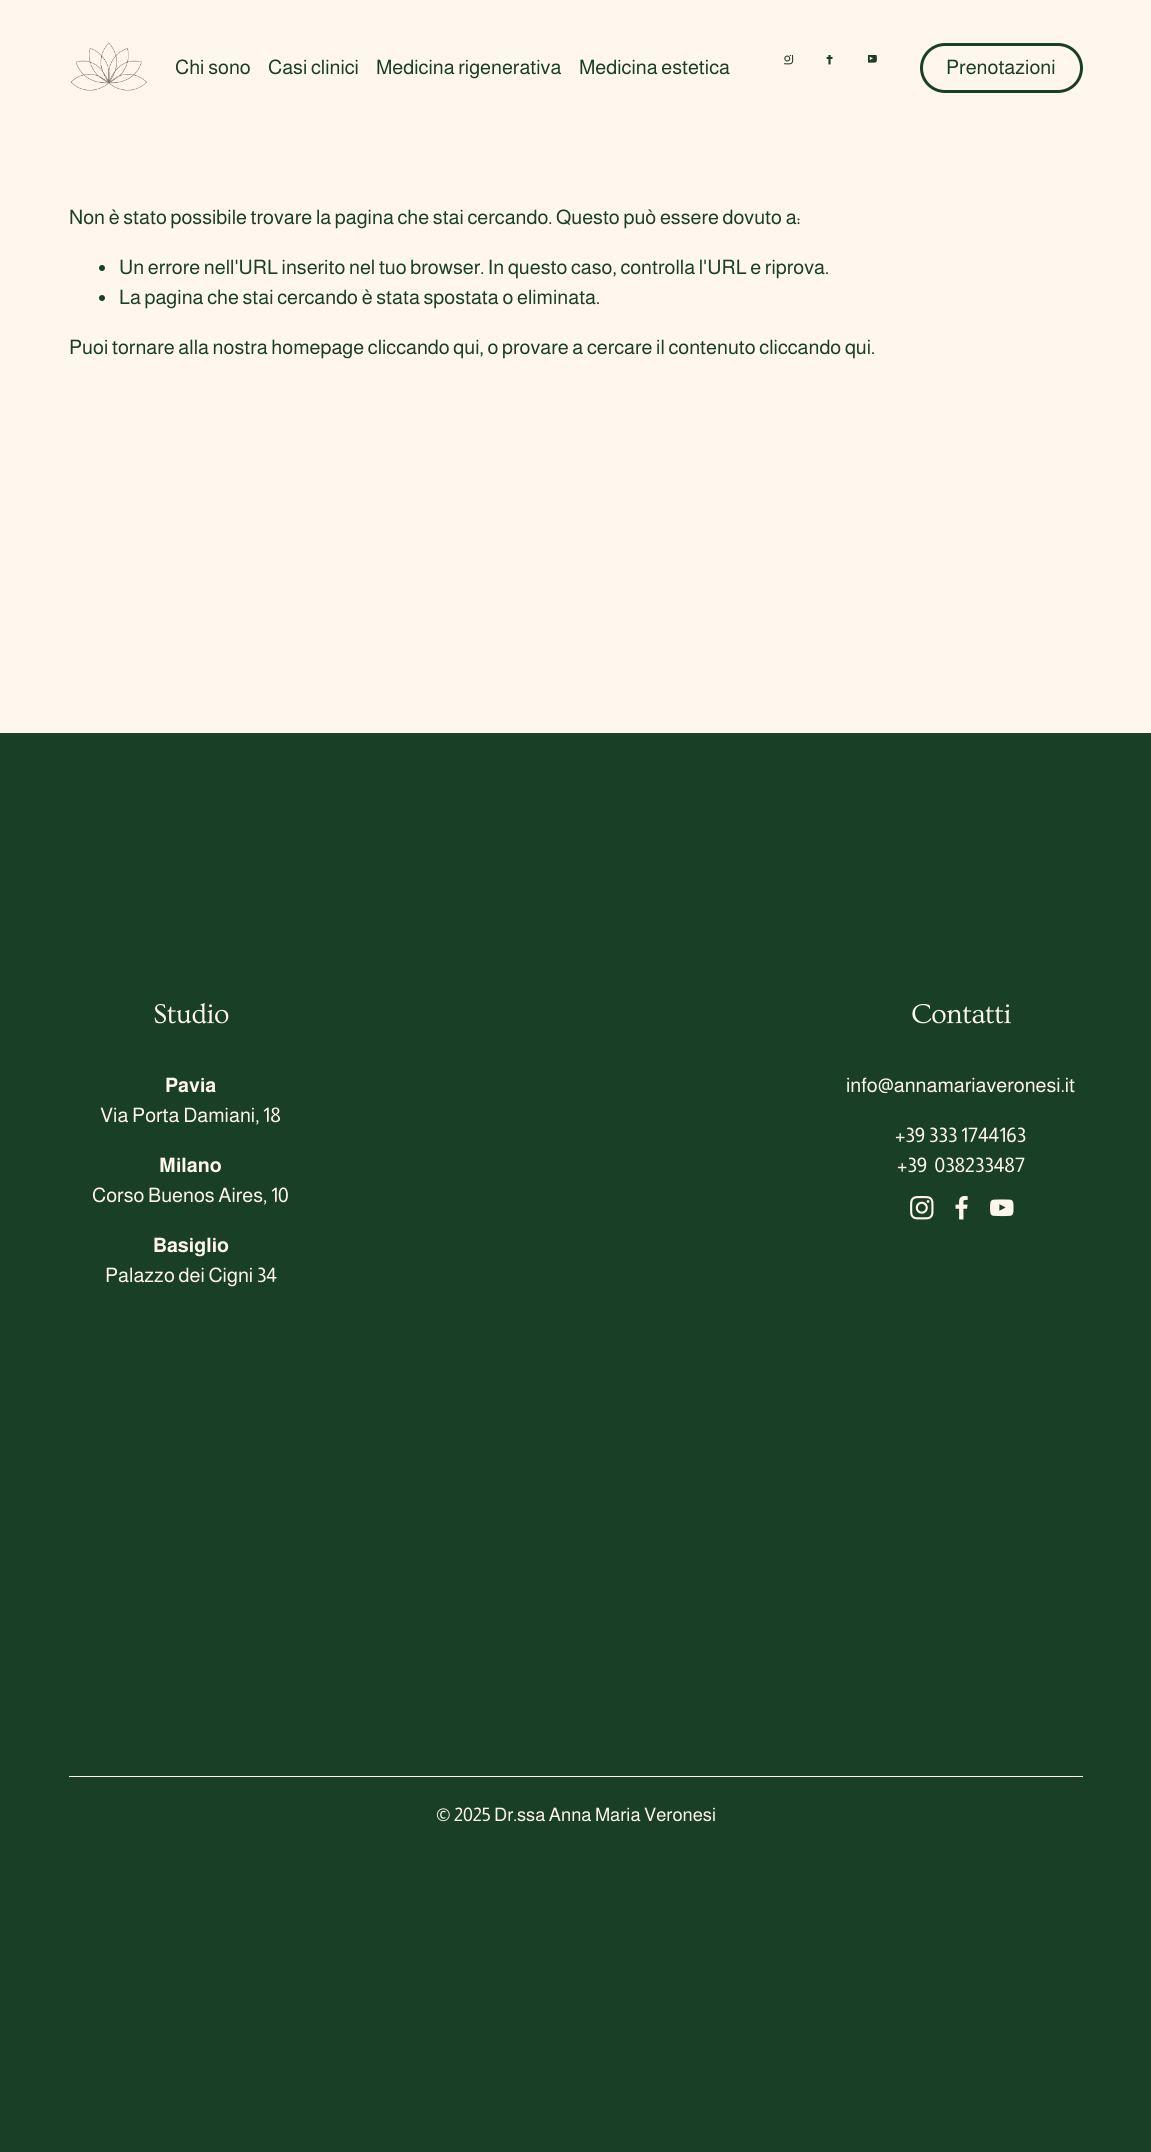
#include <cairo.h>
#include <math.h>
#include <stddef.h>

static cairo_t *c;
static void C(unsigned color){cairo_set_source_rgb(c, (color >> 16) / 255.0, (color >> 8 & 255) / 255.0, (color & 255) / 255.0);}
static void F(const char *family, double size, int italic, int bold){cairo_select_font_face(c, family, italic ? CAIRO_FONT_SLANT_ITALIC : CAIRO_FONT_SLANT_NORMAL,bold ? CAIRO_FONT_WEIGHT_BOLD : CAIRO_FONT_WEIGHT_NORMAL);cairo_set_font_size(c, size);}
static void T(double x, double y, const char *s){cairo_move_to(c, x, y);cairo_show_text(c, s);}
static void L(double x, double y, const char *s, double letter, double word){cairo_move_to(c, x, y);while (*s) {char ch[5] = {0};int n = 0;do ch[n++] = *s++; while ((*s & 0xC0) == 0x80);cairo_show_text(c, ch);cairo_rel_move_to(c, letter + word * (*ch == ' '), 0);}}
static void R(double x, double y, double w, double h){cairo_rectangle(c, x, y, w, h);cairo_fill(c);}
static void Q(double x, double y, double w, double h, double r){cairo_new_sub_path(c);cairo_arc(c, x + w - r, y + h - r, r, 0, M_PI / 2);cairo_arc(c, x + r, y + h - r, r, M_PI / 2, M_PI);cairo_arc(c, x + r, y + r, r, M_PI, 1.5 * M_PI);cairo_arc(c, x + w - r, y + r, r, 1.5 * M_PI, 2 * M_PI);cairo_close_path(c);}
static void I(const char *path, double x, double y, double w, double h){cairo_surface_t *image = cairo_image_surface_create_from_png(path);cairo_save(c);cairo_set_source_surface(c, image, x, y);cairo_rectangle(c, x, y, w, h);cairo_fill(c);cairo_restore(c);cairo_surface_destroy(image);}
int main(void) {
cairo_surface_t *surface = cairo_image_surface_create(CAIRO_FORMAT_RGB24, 1151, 2152);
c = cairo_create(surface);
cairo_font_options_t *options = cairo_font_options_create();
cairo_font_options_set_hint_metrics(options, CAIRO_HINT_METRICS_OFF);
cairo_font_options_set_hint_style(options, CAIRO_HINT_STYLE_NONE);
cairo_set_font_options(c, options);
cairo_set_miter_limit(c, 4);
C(0xfff6ed);
cairo_paint(c);
I("1.png",70,42,77,49);
F("Almarai",20,0,0);
C(0x194027);
T(175,74,"Chi sono");
T(268,74,"Casi clinici");
T(376,74,"Medicina rigenerativa");
T(579,74,"Medicina estetica");
I("2.png",784,55,10,10);
I("3.png",826,55,7,10);
I("4.png",868,55,9,8);
Q(921.5,44.5,160,47,23.5);
cairo_set_line_width(c,3);
cairo_stroke(c);
T(946,74,"Prenotazioni");
T(69,224,"Non è stato possibile trovare la pagina che stai cercando. Questo può essere dovuto a:");
cairo_new_path(c);
cairo_arc(c,102,268,3,0,2 * M_PI);
cairo_fill(c);
T(119,274,"Un errore nell'URL inserito nel tuo browser. In questo caso, controlla l'URL e riprova.");
cairo_new_path(c);
cairo_arc(c,102,298,3,0,2 * M_PI);
cairo_fill(c);
T(119,304,"La pagina che stai cercando è stata spostata o eliminata.");
T(69,354,"Puoi tornare alla nostra homepage cliccando qui, o provare a cercare il contenuto cliccando qui.");
R(0,733,1151,1419);
F("Ovo",28.5,0,0);
C(0xfff6ed);
L(153,1023,"Studio",-.5,0);
F("Almarai",20,0,1);
T(165,1092,"Pavia");
F("Almarai",20,0,0);
T(100,1122,"Via Porta Damiani, 18");
F("Almarai",20,0,1);
T(159,1172,"Milano");
F("Almarai",20,0,0);
T(92,1202,"Corso Buenos Aires, 10");
F("Almarai",20,0,1);
T(153,1252,"Basiglio");
F("Almarai",20,0,0);
T(105,1282,"Palazzo dei Cigni 34");
F("Ovo",28.5,0,0);
L(911,1023,"Contatti",-.5,0);
F("Almarai",20,0,0);
T(846,1092,"info@annamariaveronesi.it");
T(895,1142,"+39 333 1744163");
T(897,1172,"+39  038233487");
I("5.png",910,1196,24,24);
I("6.png",955,1196,13,24);
I("7.png",990,1199,24,18);
R(69,1776,1014,1);
F("Almarai",18.6,0,0);
T(436,1821,"© 2025 Dr.ssa Anna Maria Veronesi");
cairo_surface_write_to_png(surface, "o.png");
cairo_font_options_destroy(options);
cairo_destroy(c);
cairo_surface_destroy(surface);
return 0;
}
